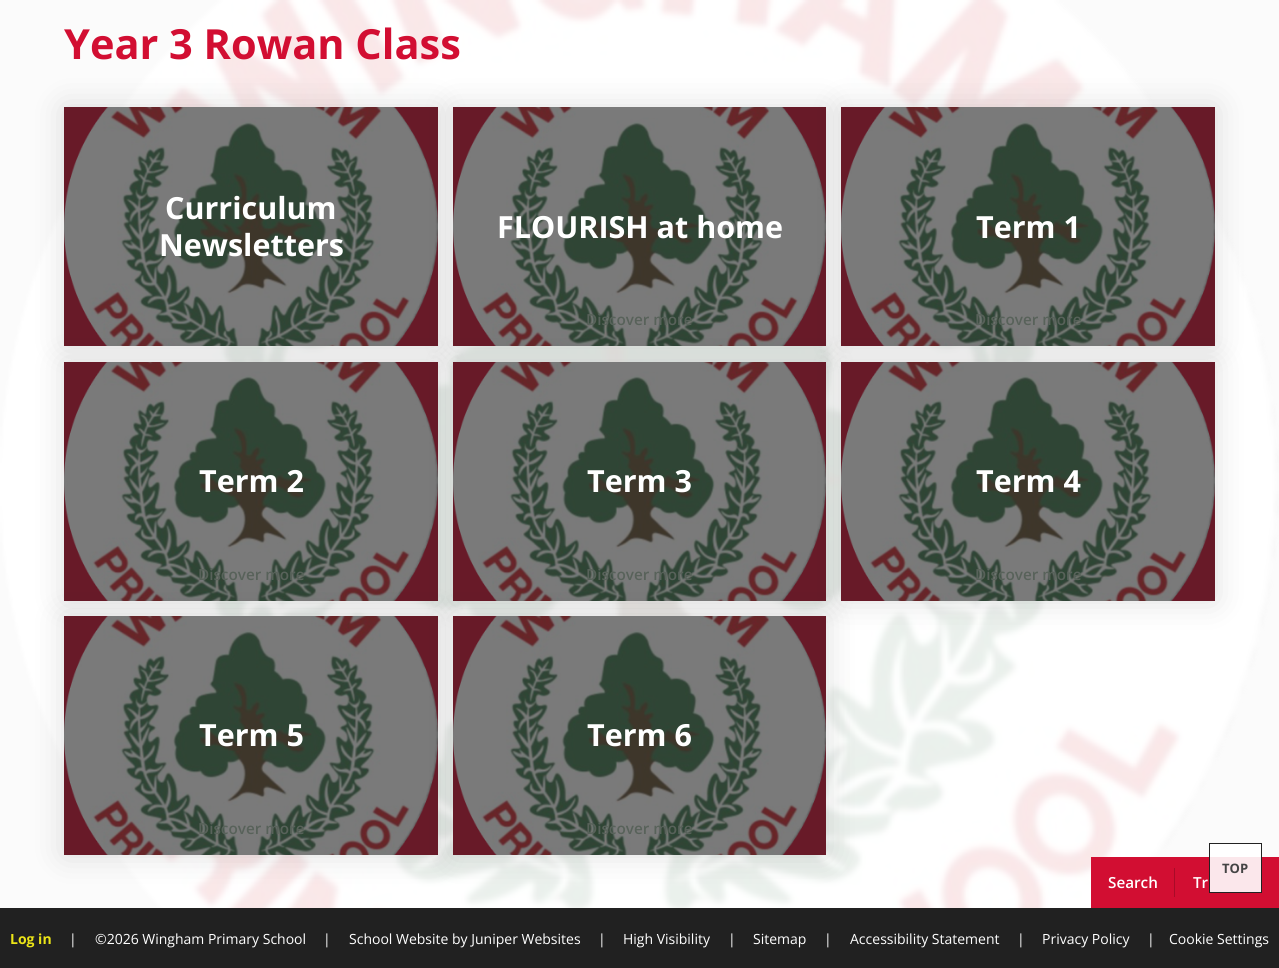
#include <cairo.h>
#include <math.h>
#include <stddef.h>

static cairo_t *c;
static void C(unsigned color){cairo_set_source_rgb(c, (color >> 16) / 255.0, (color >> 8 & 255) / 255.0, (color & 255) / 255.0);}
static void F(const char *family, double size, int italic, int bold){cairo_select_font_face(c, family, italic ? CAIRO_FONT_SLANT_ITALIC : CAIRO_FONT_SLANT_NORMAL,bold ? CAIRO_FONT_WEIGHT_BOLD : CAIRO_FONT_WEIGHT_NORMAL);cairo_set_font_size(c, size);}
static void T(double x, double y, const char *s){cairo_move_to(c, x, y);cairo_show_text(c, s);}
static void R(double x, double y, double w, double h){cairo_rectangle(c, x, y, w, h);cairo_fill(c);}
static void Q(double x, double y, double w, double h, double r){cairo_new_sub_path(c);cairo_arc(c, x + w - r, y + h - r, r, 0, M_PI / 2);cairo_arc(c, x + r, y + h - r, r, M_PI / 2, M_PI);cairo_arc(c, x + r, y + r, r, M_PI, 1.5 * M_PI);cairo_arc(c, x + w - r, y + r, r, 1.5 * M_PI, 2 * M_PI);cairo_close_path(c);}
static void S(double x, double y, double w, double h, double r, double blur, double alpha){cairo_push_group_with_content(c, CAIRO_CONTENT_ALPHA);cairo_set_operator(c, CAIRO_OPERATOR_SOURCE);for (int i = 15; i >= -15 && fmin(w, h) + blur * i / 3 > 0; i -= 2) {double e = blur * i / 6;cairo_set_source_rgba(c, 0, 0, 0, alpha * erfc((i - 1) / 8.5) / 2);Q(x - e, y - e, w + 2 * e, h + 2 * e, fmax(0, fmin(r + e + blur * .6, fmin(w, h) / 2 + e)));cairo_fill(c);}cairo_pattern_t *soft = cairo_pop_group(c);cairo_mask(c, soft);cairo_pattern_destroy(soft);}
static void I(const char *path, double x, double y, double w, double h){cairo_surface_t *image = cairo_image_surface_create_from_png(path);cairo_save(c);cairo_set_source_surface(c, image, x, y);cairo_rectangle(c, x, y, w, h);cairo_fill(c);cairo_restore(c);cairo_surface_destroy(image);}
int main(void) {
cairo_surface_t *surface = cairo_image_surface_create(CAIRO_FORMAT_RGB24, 1279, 968);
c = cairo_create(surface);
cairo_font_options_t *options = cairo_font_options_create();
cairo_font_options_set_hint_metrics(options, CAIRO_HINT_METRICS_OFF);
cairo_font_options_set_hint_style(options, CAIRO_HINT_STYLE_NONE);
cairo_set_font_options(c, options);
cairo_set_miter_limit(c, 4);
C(0xfbfbfb);
cairo_paint(c);
I("1.png",0,0,1279,908);
F("Open Sans",41.5,0,1);
C(0xd20e32);
T(64,59,"Year 3 Rowan Class");
C(0x222222);
S(64,107,374,239,0,16,.15);
C(0xd20e32);
R(64,107,374,239);
I("2.png",64,107,374,239);
cairo_set_source_rgba(c,0.133,0.133,0.133,0.6);
R(64,107,374,239);
F("Open Sans",30.5,0,1);
C(0xffffff);
T(165,219,"Curriculum");
T(159,256,"Newsletters");
C(0x222222);
S(453,107,373,239,0,16,.15);
C(0xd20e32);
R(453,107,373,239);
I("3.png",453,107,373,239);
cairo_set_source_rgba(c,0.133,0.133,0.133,0.6);
R(453,107,373,239);
C(0xffffff);
T(497,238,"FLOURISH at home");
F("Open Sans SemiBold",15.25,0,0);
C(0x58625a);
T(586,325,"Discover more");
C(0x222222);
S(841,107,374,239,0,16,.15);
C(0xd20e32);
R(841,107,374,239);
I("2.png",841,107,374,239);
cairo_set_source_rgba(c,0.133,0.133,0.133,0.6);
R(841,107,374,239);
F("Open Sans",30.5,0,1);
C(0xffffff);
T(976,238,"Term 1");
F("Open Sans SemiBold",15.25,0,0);
C(0x58625a);
T(975,325,"Discover more");
C(0x222222);
S(64,362,374,239,0,16,.15);
C(0xd20e32);
R(64,362,374,239);
I("4.png",64,362,374,239);
cairo_set_source_rgba(c,0.133,0.133,0.133,0.6);
R(64,362,374,239);
F("Open Sans",30.5,0,1);
C(0xffffff);
T(199,492,"Term 2");
F("Open Sans SemiBold",15.25,0,0);
C(0x58625a);
T(198,580,"Discover more");
C(0x222222);
S(453,362,373,239,0,16,.15);
C(0xd20e32);
R(453,362,373,239);
I("5.png",453,362,373,239);
cairo_set_source_rgba(c,0.133,0.133,0.133,0.6);
R(453,362,373,239);
F("Open Sans",30.5,0,1);
C(0xffffff);
T(587,492,"Term 3");
F("Open Sans SemiBold",15.25,0,0);
C(0x58625a);
T(586,580,"Discover more");
C(0x222222);
S(841,362,374,239,0,16,.15);
C(0xd20e32);
R(841,362,374,239);
I("4.png",841,362,374,239);
cairo_set_source_rgba(c,0.133,0.133,0.133,0.6);
R(841,362,374,239);
F("Open Sans",30.5,0,1);
C(0xffffff);
T(976,492,"Term 4");
F("Open Sans SemiBold",15.25,0,0);
C(0x58625a);
T(975,580,"Discover more");
C(0x222222);
S(64,616,374,239,0,16,.15);
C(0xd20e32);
R(64,616,374,239);
I("6.png",64,616,374,239);
cairo_set_source_rgba(c,0.133,0.133,0.133,0.6);
R(64,616,374,239);
F("Open Sans",30.5,0,1);
C(0xffffff);
T(199,746,"Term 5");
F("Open Sans SemiBold",15.25,0,0);
C(0x58625a);
T(198,834,"Discover more");
C(0x222222);
S(453,616,373,239,0,16,.15);
C(0xd20e32);
R(453,616,373,239);
I("7.png",453,616,373,239);
cairo_set_source_rgba(c,0.133,0.133,0.133,0.6);
R(453,616,373,239);
F("Open Sans",30.5,0,1);
C(0xffffff);
T(587,746,"Term 6");
F("Open Sans SemiBold",15.25,0,0);
C(0x58625a);
T(586,834,"Discover more");
C(0xd20e32);
R(1091,857,188,51);
cairo_set_source_rgba(c,1,1,1,0.9);
cairo_rectangle(c,1209.5,843.5,52,49);
cairo_fill_preserve(c);
C(0x222222);
cairo_set_line_width(c,1);
cairo_stroke(c);
F("Open Sans",13,0,1);
C(0x444444);
T(1222,873,"TOP");
F("Open Sans SemiBold",15.25,0,0);
C(0xffffff);
T(1108,888,"Search");
C(0xa80b28);
R(1174,868,1,29);
C(0xffffff);
T(1193,888,"Tr");
C(0x212121);
R(0,908,1279,60);
F("Open Sans",14,0,1);
C(0xece517);
T(10,944,"Log in");
F("Open Sans",14,0,0);
C(0xffffff);
T(69,944,"|");
T(95,944,"©2026 Wingham Primary School");
T(323,944,"|");
T(349,944,"School Website by Juniper Websites");
T(598,944,"|");
T(623,944,"High Visibility");
T(728,944,"|");
T(753,944,"Sitemap");
T(824,944,"|");
T(850,944,"Accessibility Statement");
T(1017,944,"|");
T(1042,944,"Privacy Policy");
T(1147,944,"|");
T(1169,944,"Cookie Settings");
cairo_surface_write_to_png(surface, "o.png");
cairo_font_options_destroy(options);
cairo_destroy(c);
cairo_surface_destroy(surface);
return 0;
}
